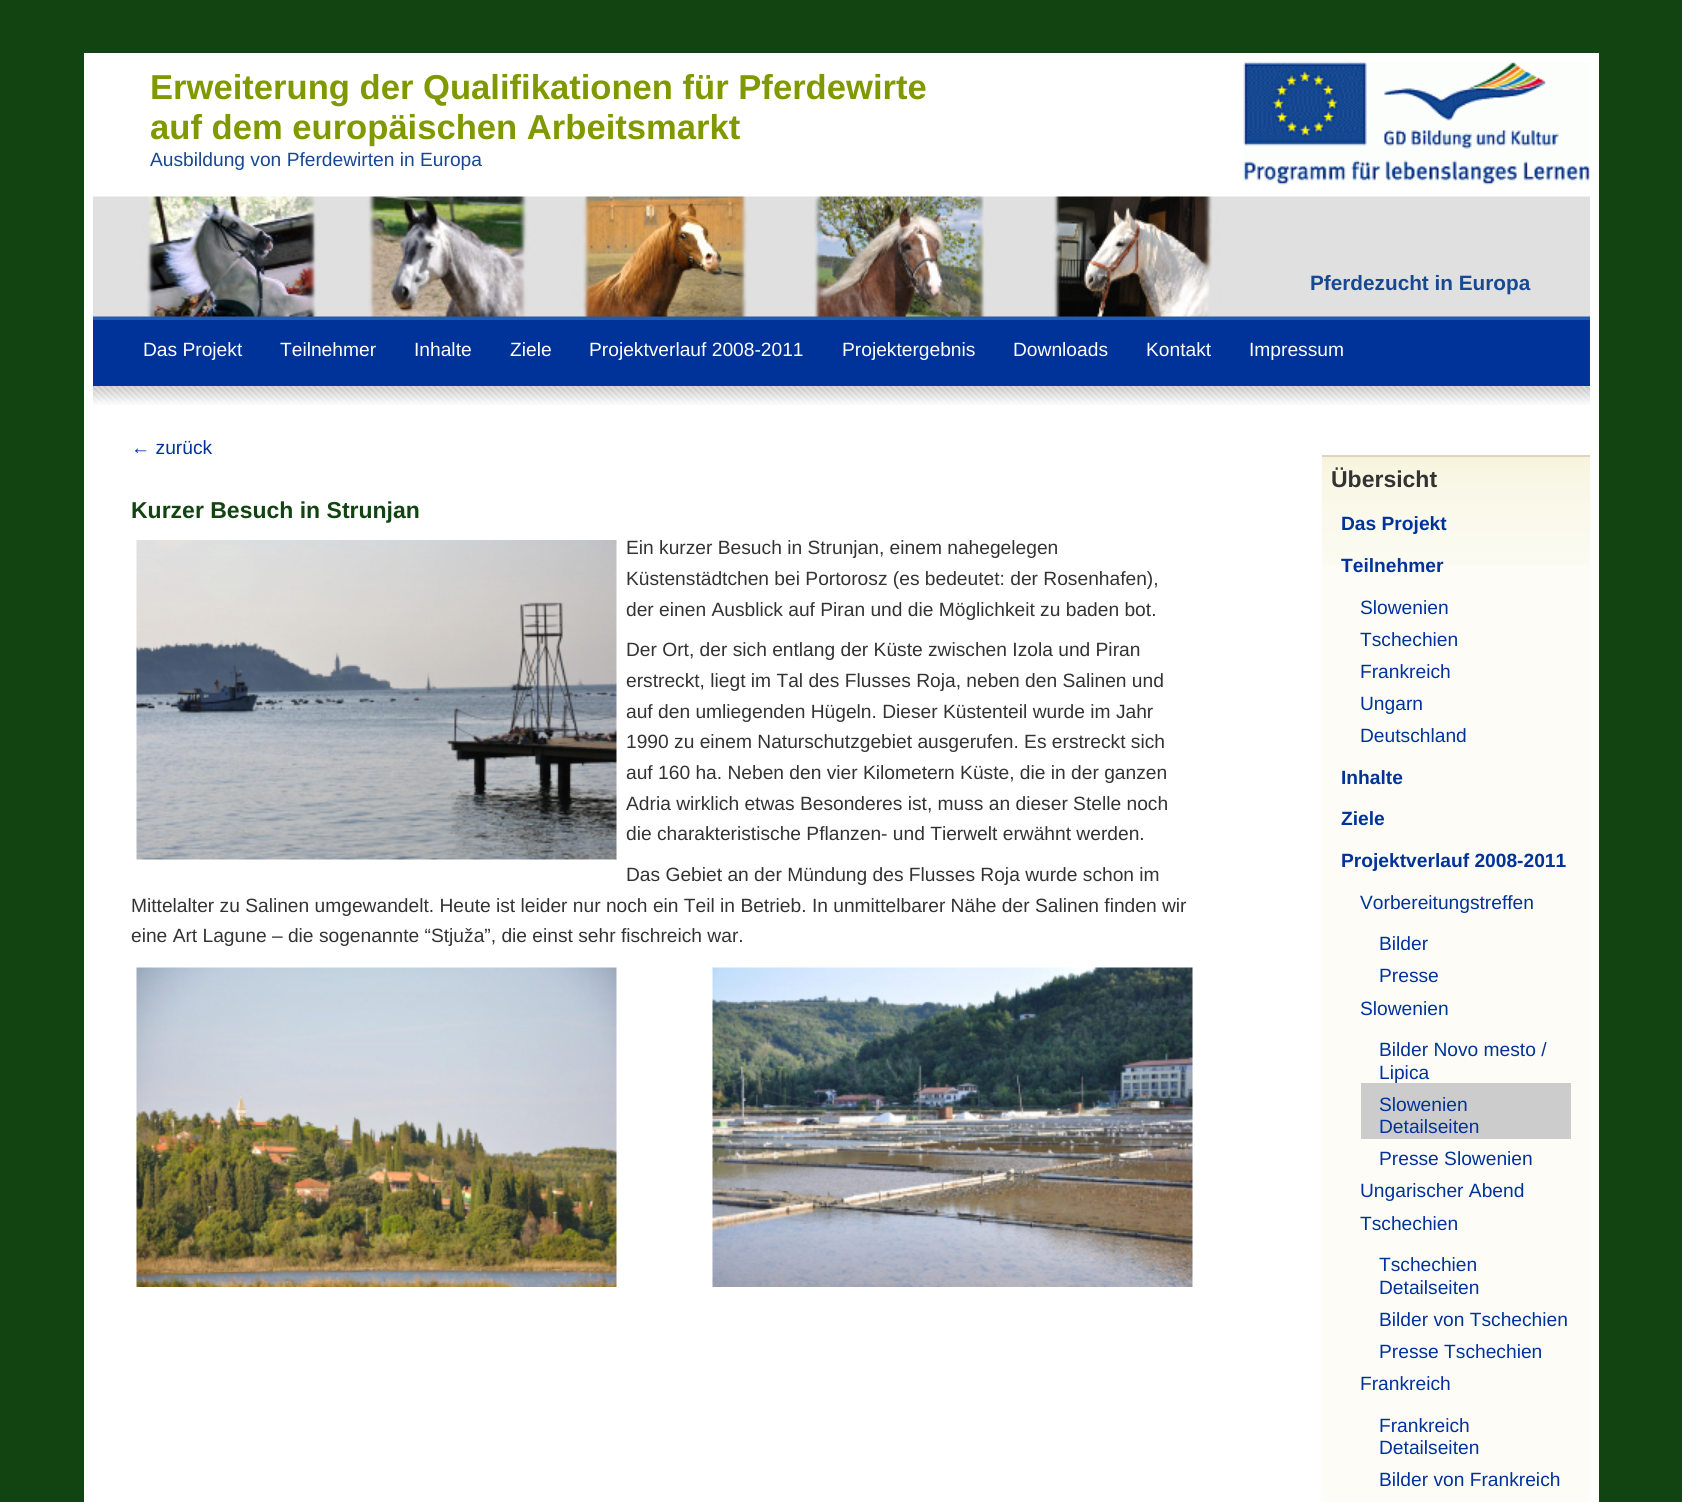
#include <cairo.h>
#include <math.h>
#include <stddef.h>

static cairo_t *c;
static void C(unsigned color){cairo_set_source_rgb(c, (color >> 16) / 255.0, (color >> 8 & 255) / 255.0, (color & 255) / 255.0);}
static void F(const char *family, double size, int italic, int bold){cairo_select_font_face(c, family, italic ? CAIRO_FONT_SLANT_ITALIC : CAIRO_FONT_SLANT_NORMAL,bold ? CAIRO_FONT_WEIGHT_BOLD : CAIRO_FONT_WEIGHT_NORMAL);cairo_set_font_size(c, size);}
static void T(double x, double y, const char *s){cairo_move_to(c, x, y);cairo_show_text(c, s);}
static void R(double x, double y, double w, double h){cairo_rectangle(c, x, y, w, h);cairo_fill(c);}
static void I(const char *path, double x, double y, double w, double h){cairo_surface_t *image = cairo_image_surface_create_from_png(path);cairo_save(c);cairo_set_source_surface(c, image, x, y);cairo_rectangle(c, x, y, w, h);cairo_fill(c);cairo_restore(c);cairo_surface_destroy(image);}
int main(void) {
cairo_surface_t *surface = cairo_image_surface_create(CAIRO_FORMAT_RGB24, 1682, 1502);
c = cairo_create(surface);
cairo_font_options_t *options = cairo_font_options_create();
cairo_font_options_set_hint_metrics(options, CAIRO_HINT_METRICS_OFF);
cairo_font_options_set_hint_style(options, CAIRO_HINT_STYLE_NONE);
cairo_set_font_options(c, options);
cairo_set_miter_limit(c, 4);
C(0x114411);
cairo_paint(c);
C(0xffffff);
R(84,53,1515,1449);
F("Liberation Sans",34.6,0,1);
C(0x819900);
T(150,99,"Erweiterung der Qualifikationen für Pferdewirte");
T(150,139,"auf dem europäischen Arbeitsmarkt");
F("Liberation Sans",19.2,0,0);
C(0x174891);
T(150,166,"Ausbildung von Pferdewirten in Europa");
I("1.png",1243,61,347,124);
C(0x235bae);
R(93,316,1497,4);
I("2.png",93,196,1497,121);
F("Liberation Sans",20.75,0,1);
C(0x174891);
T(1310,290,"Pferdezucht in Europa");
C(0x003399);
R(93,320,1497,66);
F("Liberation Sans",19.2,0,0);
C(0xffffff);
T(143,356,"Das Projekt");
T(280,356,"Teilnehmer");
T(414,356,"Inhalte");
T(510,356,"Ziele");
T(589,356,"Projektverlauf 2008-2011");
T(842,356,"Projektergebnis");
T(1013,356,"Downloads");
T(1146,356,"Kontakt");
T(1249,356,"Impressum");
I("3.png",93,386,1497,19);
C(0x003399);
T(131,454,"← zurück");
F("Liberation Sans",23,0,1);
C(0x114411);
T(131,518,"Kurzer Besuch in Strunjan");
I("4.png",136,540,481,320);
F("Liberation Sans",19.2,0,0);
C(0x333333);
T(626,554,"Ein kurzer Besuch in Strunjan, einem nahegelegen");
T(626,585,"Küstenstädtchen bei Portorosz (es bedeutet: der Rosenhafen),");
T(626,616,"der einen Ausblick auf Piran und die Möglichkeit zu baden bot.");
T(626,656,"Der Ort, der sich entlang der Küste zwischen Izola und Piran");
T(626,687,"erstreckt, liegt im Tal des Flusses Roja, neben den Salinen und");
T(626,718,"auf den umliegenden Hügeln. Dieser Küstenteil wurde im Jahr");
T(626,748,"1990 zu einem Naturschutzgebiet ausgerufen. Es erstreckt sich");
T(626,779,"auf 160 ha. Neben den vier Kilometern Küste, die in der ganzen");
T(626,810,"Adria wirklich etwas Besonderes ist, muss an dieser Stelle noch");
T(626,840,"die charakteristische Pflanzen- und Tierwelt erwähnt werden.");
T(626,881,"Das Gebiet an der Mündung des Flusses Roja wurde schon im");
T(131,912,"Mittelalter zu Salinen umgewandelt. Heute ist leider nur noch ein Teil in Betrieb. In unmittelbarer Nähe der Salinen finden wir");
T(131,942,"eine Art Lagune – die sogenannte “Stjuža”, die einst sehr fischreich war.");
I("5.png",136,967,481,320);
I("6.png",712,967,481,320);
C(0xfdfcf6);
R(1322,565,268,937);
I("7.png",1321,456,269,109);
C(0xe1d2bd);
R(1322,455,268,2);
F("Liberation Sans",23,0,1);
C(0x333333);
T(1331,487,"Übersicht");
F("Liberation Sans",19.2,0,1);
C(0x003399);
T(1341,530,"Das Projekt");
T(1341,572,"Teilnehmer");
F("Liberation Sans",19.2,0,0);
T(1360,614,"Slowenien");
T(1360,646,"Tschechien");
T(1360,678,"Frankreich");
T(1360,710,"Ungarn");
T(1360,742,"Deutschland");
F("Liberation Sans",19.2,0,1);
T(1341,784,"Inhalte");
T(1341,825,"Ziele");
T(1341,867,"Projektverlauf 2008-2011");
F("Liberation Sans",19.2,0,0);
T(1360,909,"Vorbereitungstreffen");
T(1379,950,"Bilder");
T(1379,982,"Presse");
T(1360,1015,"Slowenien");
T(1379,1056,"Bilder Novo mesto /");
T(1379,1079,"Lipica");
C(0xcccccc);
R(1361,1083,210,56);
C(0x003399);
T(1379,1111,"Slowenien");
T(1379,1133,"Detailseiten");
T(1379,1165,"Presse Slowenien");
T(1360,1197,"Ungarischer Abend");
T(1360,1230,"Tschechien");
T(1379,1271,"Tschechien");
T(1379,1294,"Detailseiten");
T(1379,1326,"Bilder von Tschechien");
T(1379,1358,"Presse Tschechien");
T(1360,1390,"Frankreich");
T(1379,1432,"Frankreich");
T(1379,1454,"Detailseiten");
T(1379,1486,"Bilder von Frankreich");
cairo_surface_write_to_png(surface, "o.png");
cairo_font_options_destroy(options);
cairo_destroy(c);
cairo_surface_destroy(surface);
return 0;
}
